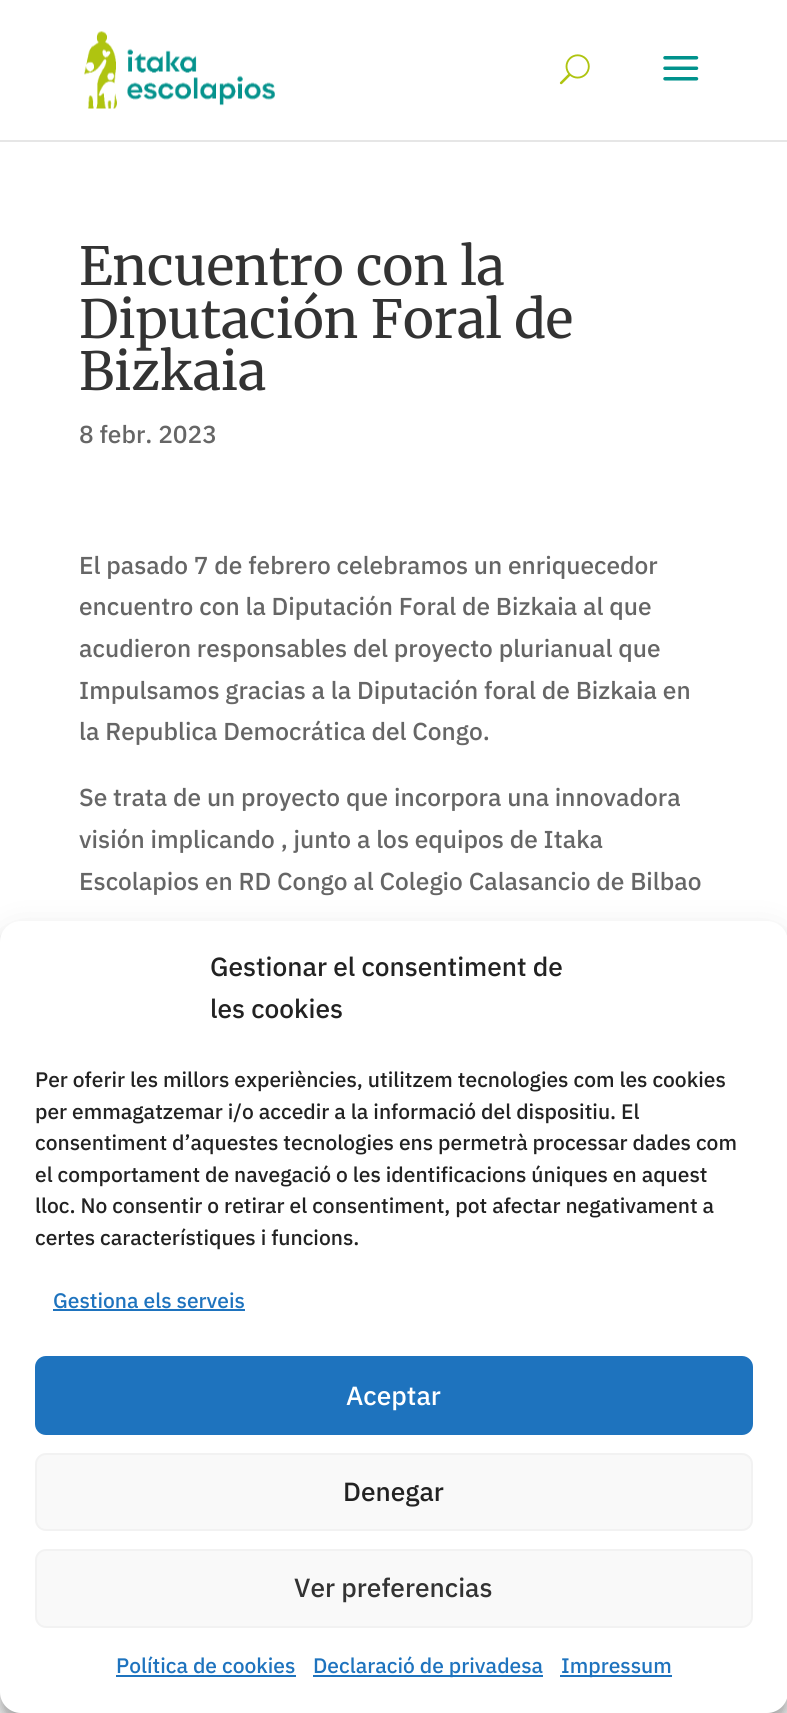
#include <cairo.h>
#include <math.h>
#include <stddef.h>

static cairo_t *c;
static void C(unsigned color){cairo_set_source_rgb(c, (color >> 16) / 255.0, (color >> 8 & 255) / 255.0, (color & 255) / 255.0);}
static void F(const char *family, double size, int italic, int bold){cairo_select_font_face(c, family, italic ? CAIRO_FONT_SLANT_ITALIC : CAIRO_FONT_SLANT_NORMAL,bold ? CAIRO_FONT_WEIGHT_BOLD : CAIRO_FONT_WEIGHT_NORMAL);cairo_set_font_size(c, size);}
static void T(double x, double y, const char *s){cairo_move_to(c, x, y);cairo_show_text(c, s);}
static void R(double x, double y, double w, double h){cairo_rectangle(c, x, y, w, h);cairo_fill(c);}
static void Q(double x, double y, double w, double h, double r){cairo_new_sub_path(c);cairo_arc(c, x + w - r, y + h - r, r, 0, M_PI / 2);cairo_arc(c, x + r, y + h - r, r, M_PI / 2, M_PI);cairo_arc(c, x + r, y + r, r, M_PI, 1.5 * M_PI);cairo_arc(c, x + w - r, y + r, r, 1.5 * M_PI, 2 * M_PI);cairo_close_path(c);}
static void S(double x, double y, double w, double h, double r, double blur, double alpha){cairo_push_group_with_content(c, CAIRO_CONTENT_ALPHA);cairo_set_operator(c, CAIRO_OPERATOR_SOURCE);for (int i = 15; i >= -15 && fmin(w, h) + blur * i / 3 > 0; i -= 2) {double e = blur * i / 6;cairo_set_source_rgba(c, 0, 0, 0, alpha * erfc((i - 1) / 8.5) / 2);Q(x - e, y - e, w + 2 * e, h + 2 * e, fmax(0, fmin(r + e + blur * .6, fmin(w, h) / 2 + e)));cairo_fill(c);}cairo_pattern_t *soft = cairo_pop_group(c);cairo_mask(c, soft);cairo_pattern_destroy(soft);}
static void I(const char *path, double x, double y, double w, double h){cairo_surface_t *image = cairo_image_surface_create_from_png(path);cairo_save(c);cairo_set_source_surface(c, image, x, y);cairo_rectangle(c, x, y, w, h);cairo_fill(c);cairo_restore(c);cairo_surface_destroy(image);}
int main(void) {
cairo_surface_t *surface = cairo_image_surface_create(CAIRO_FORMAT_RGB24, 787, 1713);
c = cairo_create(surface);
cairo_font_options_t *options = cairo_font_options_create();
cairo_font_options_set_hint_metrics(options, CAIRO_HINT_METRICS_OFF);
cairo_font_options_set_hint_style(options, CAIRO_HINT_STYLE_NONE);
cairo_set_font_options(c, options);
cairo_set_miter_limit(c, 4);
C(0xffffff);
cairo_paint(c);
C(0xe6e6e6);
cairo_new_path(c);
cairo_move_to(c,0,140);
cairo_line_to(c,0,142);
cairo_line_to(c,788,142);
cairo_line_to(c,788,2);
cairo_line_to(c,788,140);
cairo_close_path(c);
cairo_fill(c);
I("1.png",84,31,191,78);
I("2.png",559,54,31,31);
I("3.png",663,56,36,25);
F("Merriweather",52.5,0,0);
C(0x333333);
T(79,285,"Encuentro con la");
T(79,338,"Diputación Foral de");
T(79,390,"Bizkaia");
F("IBM Plex Sans Medium",24.5,0,0);
C(0x666666);
T(79,443,"8 febr. 2023");
T(79,574,"El pasado 7 de febrero celebramos un enriquecedor");
T(79,615,"encuentro con la Diputación Foral de Bizkaia al que");
T(79,657,"acudieron responsables del proyecto plurianual que");
T(79,699,"Impulsamos gracias a la Diputación foral de Bizkaia en");
T(79,740,"la Republica Democrática del Congo.");
T(79,806,"Se trata de un proyecto que incorpora una innovadora");
T(79,848,"visión implicando , junto a los equipos de Itaka");
T(79,890,"Escolapios en RD Congo al Colegio Calasancio de Bilbao");
C(0x000000);
S(0,931,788,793,21,5,.23);
S(0,938,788,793,21,17.5,.19);
C(0xffffff);
Q(0,921,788,792,21);
cairo_fill(c);
F("IBM Plex Sans Medium",26.25,0,0);
C(0x222222);
T(210,976,"Gestionar el consentiment de");
T(210,1018,"les cookies");
F("IBM Plex Sans Medium",21,0,0);
T(35,1087,"Per oferir les millors experiències, utilitzem tecnologies com les cookies");
T(35,1119,"per emmagatzemar i/o accedir a la informació del dispositiu. El");
T(35,1150,"consentiment d’aquestes tecnologies ens permetrà processar dades com");
T(35,1182,"el comportament de navegació o les identificacions úniques en aquest");
T(35,1213,"lloc. No consentir o retirar el consentiment, pot afectar negativament a");
T(35,1245,"certes característiques i funcions.");
C(0x1e73be);
T(53,1308,"Gestiona els serveis");
R(53,1309,192,2);
Q(36,1357,716,77,10);
cairo_fill_preserve(c);
cairo_stroke(c);
F("IBM Plex Sans Medium",26.25,0,0);
C(0xffffff);
T(346,1405,"Aceptar");
C(0xf9f9f9);
Q(36,1454,716,76,10);
cairo_fill_preserve(c);
C(0xf2f2f2);
cairo_stroke(c);
C(0x222222);
T(343,1501,"Denegar");
C(0xf9f9f9);
Q(36,1550,716,77,10);
cairo_fill_preserve(c);
C(0xf2f2f2);
cairo_stroke(c);
C(0x333333);
T(294,1597,"Ver preferencias");
F("IBM Plex Sans Medium",21,0,0);
C(0x1e73be);
T(116,1673,"Política de cookies");
R(116,1675,180,2);
R(313,1675,230,2);
T(313,1673,"Declaració de privadesa");
R(560,1675,112,2);
T(561,1673,"Impressum");
cairo_surface_write_to_png(surface, "o.png");
cairo_font_options_destroy(options);
cairo_destroy(c);
cairo_surface_destroy(surface);
return 0;
}
